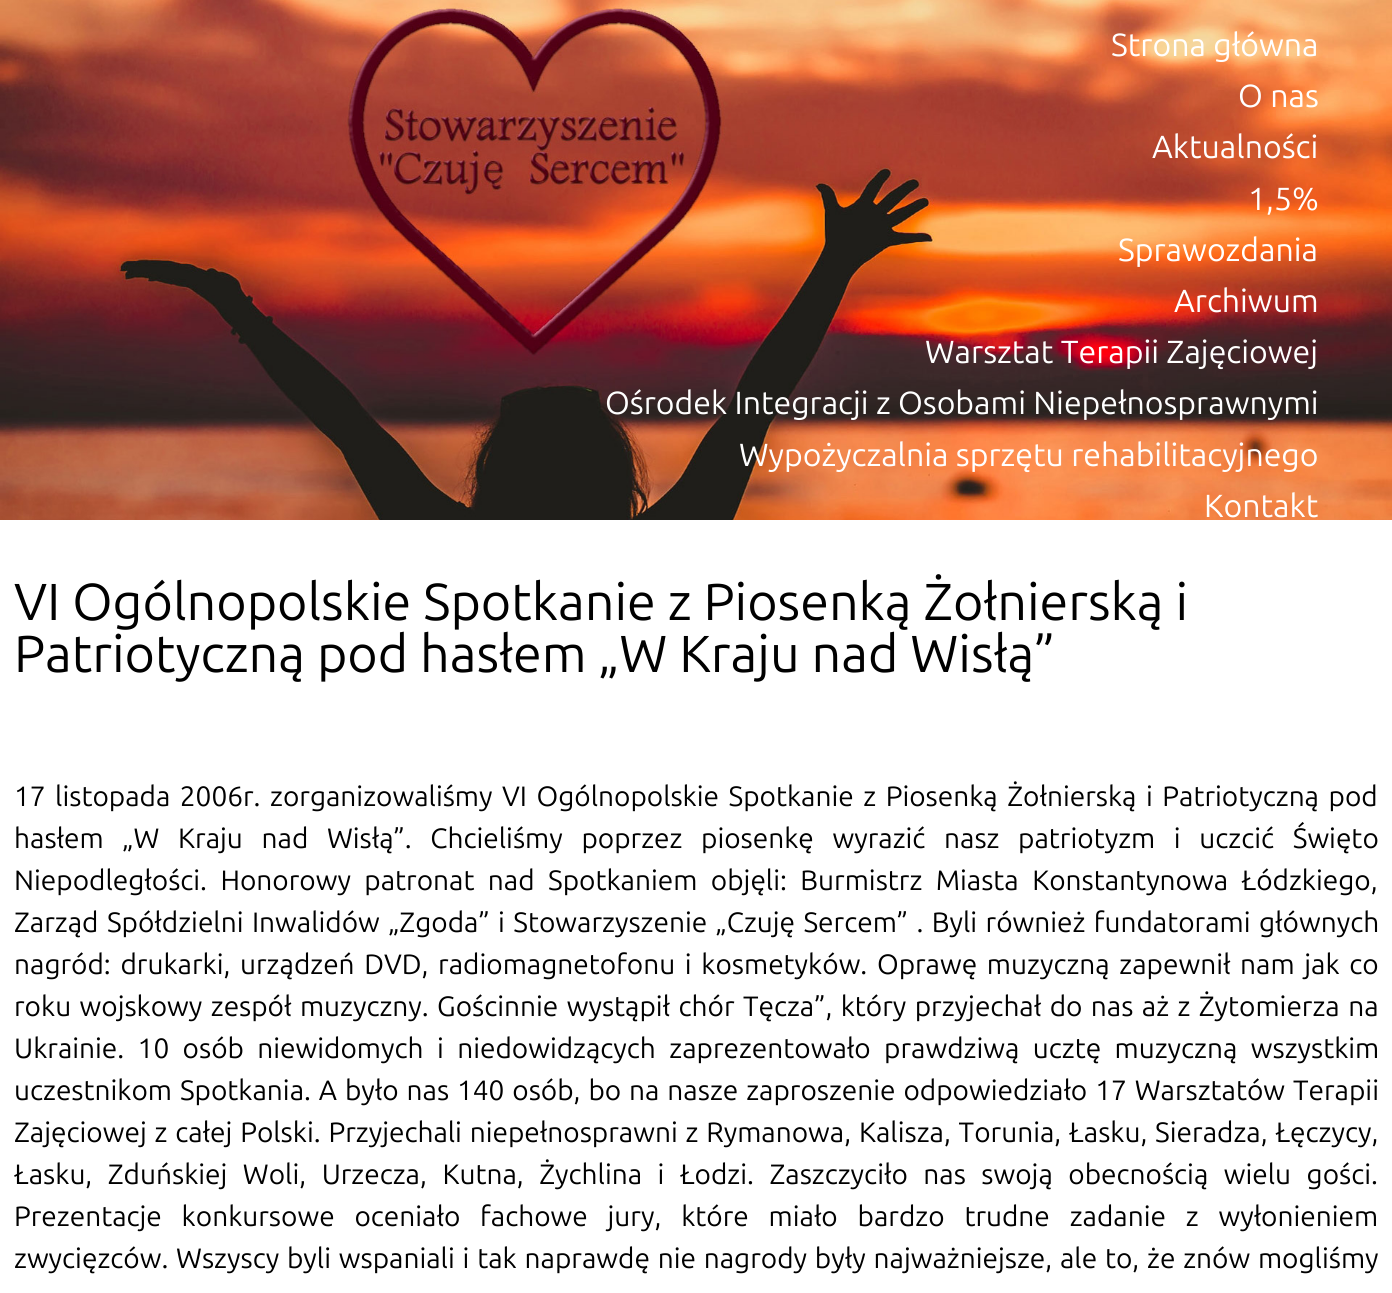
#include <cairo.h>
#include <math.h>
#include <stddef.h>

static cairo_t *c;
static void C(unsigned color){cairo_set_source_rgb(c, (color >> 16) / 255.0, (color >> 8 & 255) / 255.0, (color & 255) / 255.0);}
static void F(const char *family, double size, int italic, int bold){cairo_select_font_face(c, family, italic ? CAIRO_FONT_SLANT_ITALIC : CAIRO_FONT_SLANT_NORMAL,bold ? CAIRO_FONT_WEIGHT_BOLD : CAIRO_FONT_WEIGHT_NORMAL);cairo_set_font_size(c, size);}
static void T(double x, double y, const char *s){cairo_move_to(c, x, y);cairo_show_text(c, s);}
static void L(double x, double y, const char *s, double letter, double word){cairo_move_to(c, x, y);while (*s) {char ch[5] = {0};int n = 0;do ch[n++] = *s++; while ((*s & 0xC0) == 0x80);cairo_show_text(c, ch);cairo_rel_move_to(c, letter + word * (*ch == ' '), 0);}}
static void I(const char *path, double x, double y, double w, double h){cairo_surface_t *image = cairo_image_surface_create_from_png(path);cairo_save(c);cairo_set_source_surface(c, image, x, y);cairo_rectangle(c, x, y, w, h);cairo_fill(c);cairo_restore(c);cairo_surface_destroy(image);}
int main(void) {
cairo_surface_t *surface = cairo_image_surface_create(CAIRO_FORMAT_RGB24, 1392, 1293);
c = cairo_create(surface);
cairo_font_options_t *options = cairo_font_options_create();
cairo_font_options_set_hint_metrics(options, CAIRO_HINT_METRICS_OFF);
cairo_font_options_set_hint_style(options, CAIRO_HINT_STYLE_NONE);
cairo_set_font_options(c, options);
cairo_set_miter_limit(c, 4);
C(0xffffff);
cairo_paint(c);
I("1.png",0,0,1392,520);
F("Ubuntu",32,0,0);
C(0xffffff);
T(1111,56,"Strona główna");
T(1238,107,"O nas");
T(1152,158,"Aktualności");
T(1248,210,"1,5%");
T(1118,261,"Sprawozdania");
T(1174,312,"Archiwum");
T(925,363,"Warsztat Terapii Zajęciowej");
T(605,414,"Ośrodek Integracji z Osobami Niepełnosprawnymi");
T(739,466,"Wypożyczalnia sprzętu rehabilitacyjnego");
T(1204,517,"Kontakt");
F("Ubuntu",52,0,0);
C(0x000000);
T(14,620,"VI Ogólnopolskie Spotkanie z Piosenką Żołnierską i");
T(14,672,"Patriotyczną pod hasłem „W Kraju nad Wisłą”");
F("Ubuntu",28,0,0);
L(14,806,"17 listopada 2006r. zorganizowaliśmy VI Ogólnopolskie Spotkanie z Piosenką Żołnierską i Patriotyczną pod",0,3.1);
L(14,848,"hasłem „W Kraju nad Wisłą”. Chcieliśmy poprzez piosenkę wyrazić nasz patriotyzm i uczcić Święto",0,12.25);
L(14,890,"Niepodległości. Honorowy patronat nad Spotkaniem objęli: Burmistrz Miasta Konstantynowa Łódzkiego,",0,7);
L(14,932,"Zarząd Spółdzielni Inwalidów „Zgoda” i Stowarzyszenie „Czuję Sercem” . Byli również fundatorami głównych",0,2);
L(14,974,"nagród: drukarki, urządzeń DVD, radiomagnetofonu i kosmetyków. Oprawę muzyczną zapewnił nam jak co",0,3.25);
L(14,1016,"roku wojskowy zespół muzyczny. Gościnnie wystąpił chór Tęcza”, który przyjechał do nas aż z Żytomierza na",0,2);
L(14,1058,"Ukrainie. 10 osób niewidomych i niedowidzących zaprezentowało prawdziwą ucztę muzyczną wszystkim",0,7);
L(14,1100,"uczestnikom Spotkania. A było nas 140 osób, bo na nasze zaproszenie odpowiedziało 17 Warsztatów Terapii",0,1.5);
L(14,1142,"Zajęciowej z całej Polski. Przyjechali niepełnosprawni z Rymanowa, Kalisza, Torunia, Łasku, Sieradza, Łęczycy,",0,1.4);
L(14,1184,"Łasku, Zduńskiej Woli, Urzecza, Kutna, Żychlina i Łodzi. Zaszczyciło nas swoją obecnością wielu gości.",0,9.1);
L(14,1226,"Prezentacje konkursowe oceniało fachowe jury, które miało bardzo trudne zadanie z wyłonieniem",0,13.4);
L(14,1268,"zwycięzców. Wszyscy byli wspaniali i tak naprawdę nie nagrody były najważniejsze, ale to, że znów mogliśmy",0,1.4);
cairo_surface_write_to_png(surface, "o.png");
cairo_font_options_destroy(options);
cairo_destroy(c);
cairo_surface_destroy(surface);
return 0;
}
